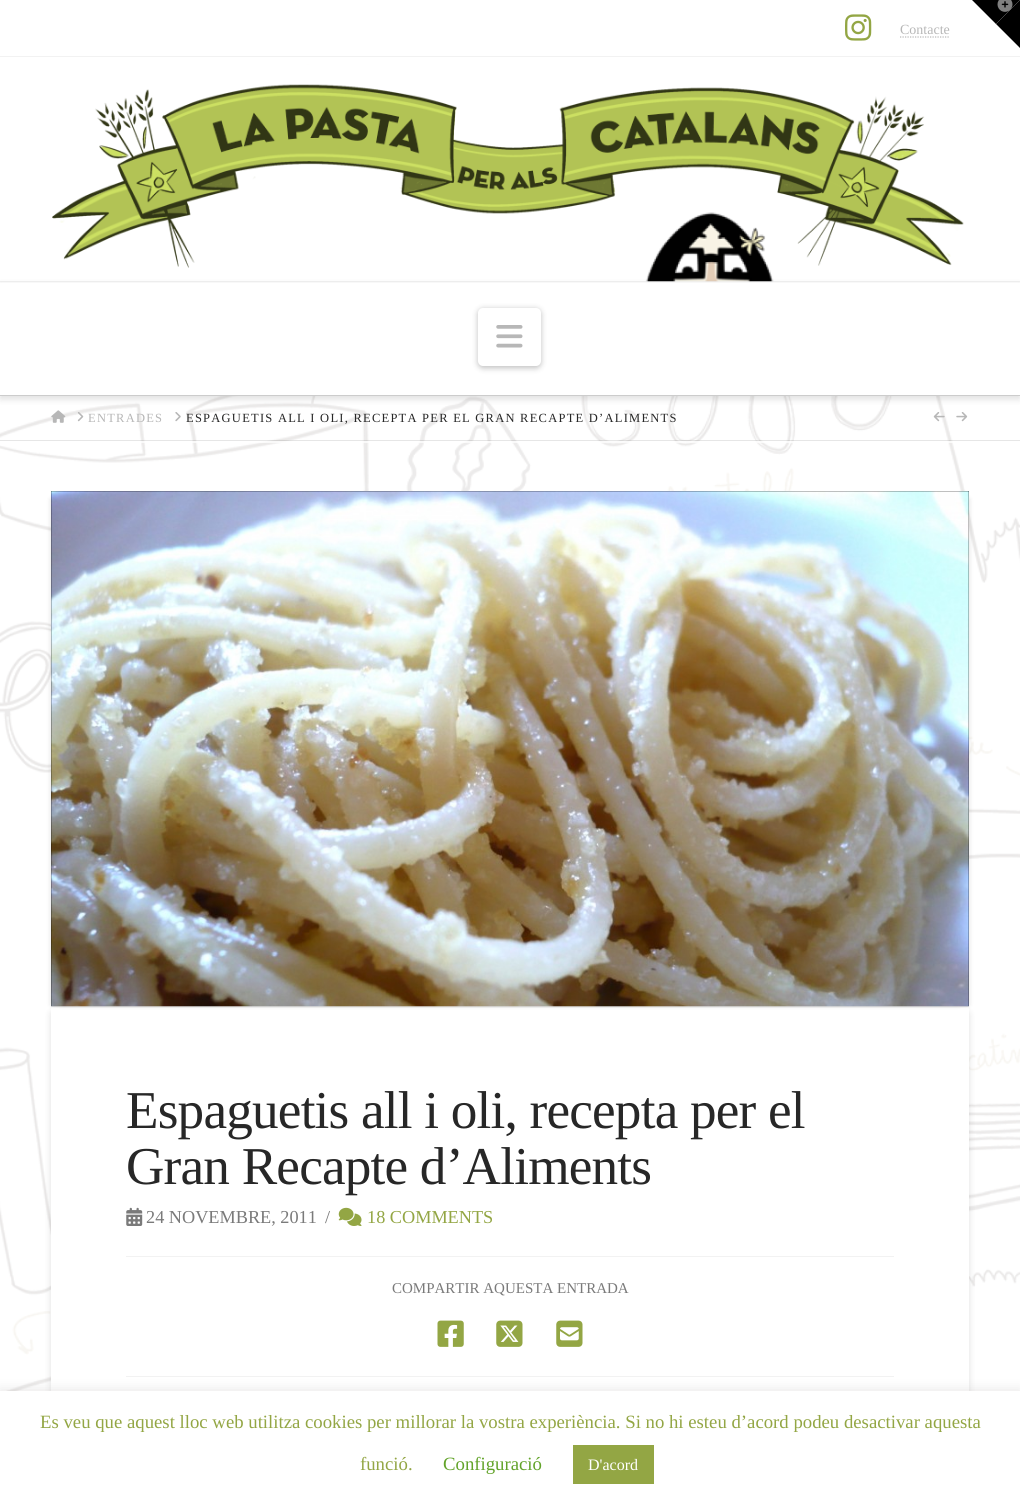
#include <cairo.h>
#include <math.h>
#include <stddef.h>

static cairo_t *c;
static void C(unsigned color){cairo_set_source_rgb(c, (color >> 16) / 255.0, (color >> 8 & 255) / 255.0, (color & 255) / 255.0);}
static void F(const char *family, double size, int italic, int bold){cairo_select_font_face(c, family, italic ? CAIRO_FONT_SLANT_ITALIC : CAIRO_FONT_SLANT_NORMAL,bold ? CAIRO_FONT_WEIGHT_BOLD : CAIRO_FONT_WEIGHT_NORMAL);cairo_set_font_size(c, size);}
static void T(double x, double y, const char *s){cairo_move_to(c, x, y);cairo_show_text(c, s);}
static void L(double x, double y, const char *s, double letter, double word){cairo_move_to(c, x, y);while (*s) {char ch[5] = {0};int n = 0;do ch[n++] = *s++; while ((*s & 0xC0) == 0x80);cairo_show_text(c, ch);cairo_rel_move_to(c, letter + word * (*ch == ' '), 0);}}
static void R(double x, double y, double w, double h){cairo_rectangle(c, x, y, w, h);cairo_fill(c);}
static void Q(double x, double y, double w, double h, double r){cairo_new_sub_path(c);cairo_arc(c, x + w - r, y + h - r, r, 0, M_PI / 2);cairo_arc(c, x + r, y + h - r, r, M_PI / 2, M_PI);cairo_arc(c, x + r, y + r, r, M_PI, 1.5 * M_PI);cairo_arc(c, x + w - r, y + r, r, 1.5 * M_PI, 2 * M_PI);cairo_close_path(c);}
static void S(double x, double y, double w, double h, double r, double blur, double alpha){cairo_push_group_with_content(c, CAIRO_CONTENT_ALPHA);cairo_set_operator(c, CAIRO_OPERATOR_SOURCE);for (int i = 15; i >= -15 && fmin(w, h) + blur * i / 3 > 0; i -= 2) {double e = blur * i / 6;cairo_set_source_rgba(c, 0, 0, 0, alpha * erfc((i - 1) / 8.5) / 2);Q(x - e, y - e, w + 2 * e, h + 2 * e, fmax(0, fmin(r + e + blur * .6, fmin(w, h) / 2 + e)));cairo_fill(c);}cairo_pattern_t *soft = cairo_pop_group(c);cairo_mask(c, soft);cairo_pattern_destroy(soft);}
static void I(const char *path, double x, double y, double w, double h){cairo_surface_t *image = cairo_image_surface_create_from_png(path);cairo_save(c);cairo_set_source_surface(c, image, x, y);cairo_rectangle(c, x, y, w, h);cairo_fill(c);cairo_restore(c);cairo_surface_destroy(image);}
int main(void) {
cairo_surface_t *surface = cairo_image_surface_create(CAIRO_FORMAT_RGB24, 1020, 1505);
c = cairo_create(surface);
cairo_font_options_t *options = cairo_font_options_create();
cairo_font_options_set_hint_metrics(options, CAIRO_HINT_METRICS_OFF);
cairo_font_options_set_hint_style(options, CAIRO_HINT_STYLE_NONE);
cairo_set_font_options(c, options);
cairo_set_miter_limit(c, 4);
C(0xffffff);
cairo_paint(c);
I("1.png",0,0,1020,1391);
C(0xf2f2f2);
R(0,56,1020,1);
I("2.png",845,14,27,27);
F("Liberation Serif",14,0,0);
C(0xb7b7b7);
T(900,34,"Contacte");
cairo_new_path(c);
cairo_move_to(c,900,37);
cairo_line_to(c,949,37);
cairo_set_line_width(c,1.2);
cairo_set_dash(c,(double[]){1.25,1.25},2,0);
cairo_stroke(c);
C(0xffffff);
R(0,65,1020,218);
C(0xf2f2f2);
R(0,281,1020,1);
I("3.png",52,84,912,198);
I("5.png",51,410,15,13);
C(0x000000);
S(0,285,1020,114,0,3.5,.13);
C(0xffffff);
R(0,283,1020,112);
C(0xcccccc);
R(0,395,1020,1);
C(0x000000);
S(478,309,63,59,5,3,.25);
C(0xffffff);
Q(478,308,63,58,5);
cairo_fill(c);
I("4.png",496,325,27,23);
cairo_set_source_rgba(c,1,1,1,0.71);
R(141,441,812,2);
cairo_set_source_rgba(c,0,0,0,0.1);
R(0,440,1020,1);
I("6.png",77,412,7,10);
F("Liberation Serif",12.5,0,0);
C(0xb7b7b7);
L(88,422,"ENTRADES",1.25,0);
I("7.png",175,412,6,10);
C(0x272727);
L(186,422,"ESPAGUETIS ALL I OLI, RECEPTA PER EL GRAN RECAPTE D’ALIMENTS",1.25,0);
I("8.png",933,412,12,10);
I("9.png",956,412,12,10);
C(0x000000);
S(51,1010,918,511,5,3.5,.13);
C(0xffffff);
R(51,1008,918,383);
C(0x000000);
S(51,499,908,506,0,2.5,.13);
S(61,499,908,506,0,2.5,.13);
C(0xdddddd);
R(51,1006,918,1);
C(0x000000);
R(51,491,918,515);
I("10.png",51,491,918,516);
F("Liberation Serif",53.2,0,0);
C(0x272727);
L(126,1128,"Espaguetis all i oli, recepta per el",-.8,0);
L(126,1184,"Gran Recapte d’Aliments",-.8,0);
I("11.png",126,1207,17,19);
F("Liberation Serif",18.25,0,0);
C(0x7a7a7a);
T(146,1223,"24 NOVEMBRE, 2011");
T(325,1223,"/");
I("12.png",338,1207,24,19);
C(0x93a644);
T(367,1223,"18 COMMENTS");
C(0xf2f2f2);
R(126,1256,768,1);
R(126,1376,768,1);
F("Liberation Serif",15,0,0);
C(0x7a7a7a);
T(392,1293,"COMPARTIR AQUESTA ENTRADA");
I("13.png",437,1320,27,27);
I("14.png",496,1320,27,27);
I("15.png",556,1320,27,27);
C(0x000000);
cairo_new_path(c);
cairo_move_to(c,972,0);
cairo_line_to(c,1020,0);
cairo_line_to(c,996,24);
cairo_close_path(c);
cairo_fill(c);
cairo_new_path(c);
cairo_move_to(c,1020,0);
cairo_line_to(c,1020,48);
cairo_line_to(c,996,24);
cairo_close_path(c);
cairo_fill(c);
I("16.png",997,0,16,12);
C(0xacabab);
S(0,1390,1020,114,0,6,.3);
C(0xffffff);
R(0,1391,1020,114);
F("Liberation Serif",18.75,0,0);
C(0x93a644);
T(40,1428,"Es veu que aquest lloc web utilitza cookies per millorar la vostra experiència. Si no hi esteu d’acord podeu desactivar aquesta");
T(360,1470,"funció.");
C(0x62a329);
T(443,1470,"Configuració");
C(0x93a644);
R(573,1445,81,39);
F("Liberation Serif",16,0,0);
C(0xffffff);
T(588,1470,"D'acord");
cairo_surface_write_to_png(surface, "o.png");
cairo_font_options_destroy(options);
cairo_destroy(c);
cairo_surface_destroy(surface);
return 0;
}
